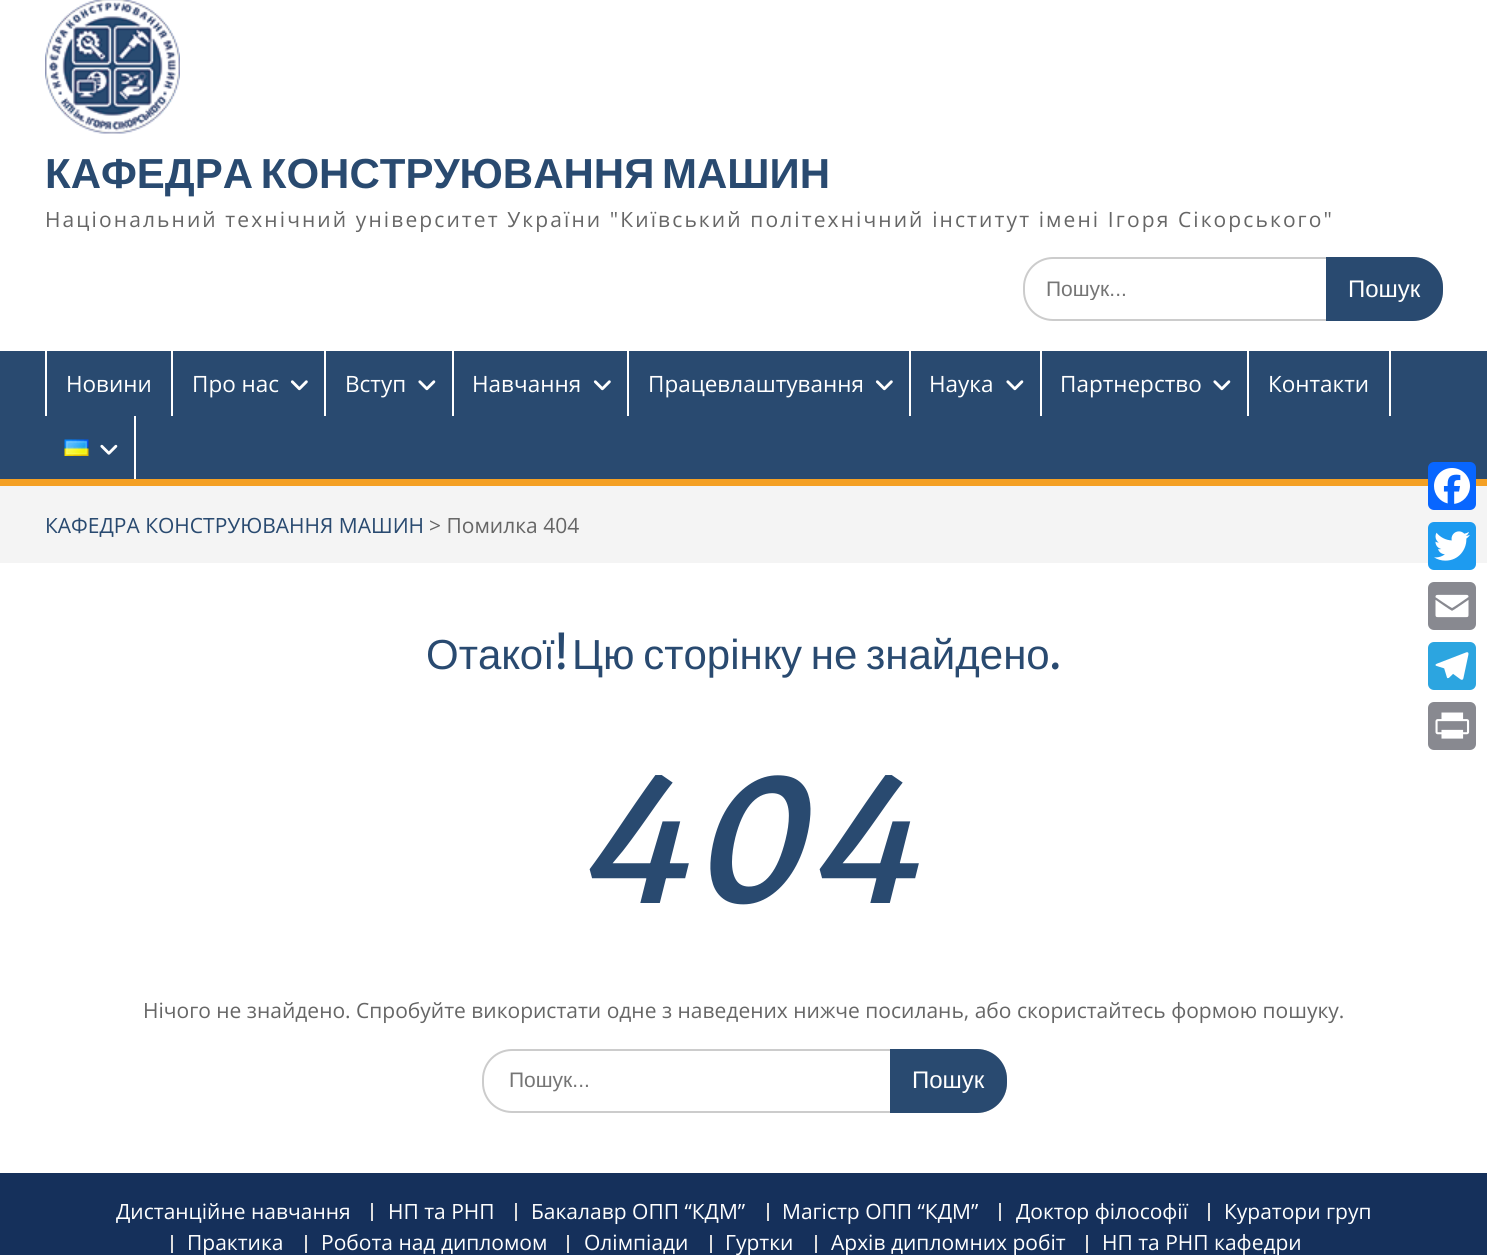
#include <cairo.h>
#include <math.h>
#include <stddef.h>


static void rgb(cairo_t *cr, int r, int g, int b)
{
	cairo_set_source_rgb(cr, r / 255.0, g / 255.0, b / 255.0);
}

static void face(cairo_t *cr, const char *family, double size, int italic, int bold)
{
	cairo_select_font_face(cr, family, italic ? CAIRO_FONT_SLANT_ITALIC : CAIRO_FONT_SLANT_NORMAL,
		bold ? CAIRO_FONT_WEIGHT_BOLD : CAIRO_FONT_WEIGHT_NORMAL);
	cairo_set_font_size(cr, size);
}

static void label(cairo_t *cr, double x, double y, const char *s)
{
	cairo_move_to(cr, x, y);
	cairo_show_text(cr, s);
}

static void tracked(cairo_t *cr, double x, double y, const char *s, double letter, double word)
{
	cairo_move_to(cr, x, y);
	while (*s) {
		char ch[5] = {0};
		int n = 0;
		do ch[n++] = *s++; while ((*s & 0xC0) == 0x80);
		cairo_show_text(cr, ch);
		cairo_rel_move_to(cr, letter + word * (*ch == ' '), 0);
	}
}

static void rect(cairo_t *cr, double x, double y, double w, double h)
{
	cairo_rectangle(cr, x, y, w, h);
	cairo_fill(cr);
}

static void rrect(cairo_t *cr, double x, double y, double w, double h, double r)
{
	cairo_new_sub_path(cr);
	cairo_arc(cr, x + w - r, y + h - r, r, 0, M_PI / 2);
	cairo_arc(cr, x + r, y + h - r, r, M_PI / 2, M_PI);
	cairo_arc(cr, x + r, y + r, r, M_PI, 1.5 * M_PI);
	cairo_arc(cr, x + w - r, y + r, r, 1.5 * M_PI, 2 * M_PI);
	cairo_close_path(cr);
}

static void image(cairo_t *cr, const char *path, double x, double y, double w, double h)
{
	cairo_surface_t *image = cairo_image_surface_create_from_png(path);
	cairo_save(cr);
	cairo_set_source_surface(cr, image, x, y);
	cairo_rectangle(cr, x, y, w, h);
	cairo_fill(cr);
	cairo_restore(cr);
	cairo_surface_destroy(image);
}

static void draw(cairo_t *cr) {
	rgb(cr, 255, 255, 255);
	cairo_paint(cr);
	image(cr, "image0.png", 45, 0, 135, 134);
	face(cr, "Liberation Sans", 42, 0, 1);
	rgb(cr, 41, 74, 112);
	tracked(cr, 45, 188, "КАФЕДРА КОНСТРУЮВАННЯ МАШИН", 0, -4);
	face(cr, "Open Sans", 21, 0, 0);
	rgb(cr, 102, 102, 102);
	tracked(cr, 45, 227, "Національний технічний університет України \"Київський політехнічний інститут імені Ігоря Сікорського\"", 2.1, 0);
	rrect(cr, 1024, 258, 418, 62, 29);
	rgb(cr, 204, 204, 204);
	cairo_stroke(cr);
	cairo_save(cr);
	cairo_rectangle(cr, 1046, 276, 285, 24);
	cairo_clip(cr);
	face(cr, "Liberation Sans", 21, 0, 0);
	rgb(cr, 117, 117, 117);
	label(cr, 1046, 296, "Пошук...");
	cairo_restore(cr);
	rgb(cr, 41, 74, 112);
	cairo_new_path(cr);
	cairo_move_to(cr, 1326, 257);
	cairo_line_to(cr, 1413, 257);
	cairo_curve_to(cr, 1429.5, 257, 1443, 270.5, 1443, 287);
	cairo_line_to(cr, 1443, 291);
	cairo_curve_to(cr, 1443, 307.5, 1429.5, 321, 1413, 321);
	cairo_line_to(cr, 1326, 321);
	cairo_close_path(cr);
	cairo_fill(cr);
	face(cr, "Liberation Sans", 24, 0, 0);
	rgb(cr, 255, 255, 255);
	label(cr, 1348, 297, "Пошук");
	rgb(cr, 41, 74, 112);
	rect(cr, 0, 351, 1487, 128);
	rgb(cr, 244, 160, 36);
	rect(cr, 0, 479, 1487, 7);
	rgb(cr, 255, 255, 255);
	rect(cr, 171, 351, 2, 65);
	rect(cr, 45, 351, 2, 65);
	face(cr, "Open Sans", 22.5, 0, 0);
	label(cr, 66, 392, "Новини");
	rect(cr, 324, 351, 2, 65);
	label(cr, 192, 392, "Про нас");
	image(cr, "image1.png", 290, 380, 18, 11);
	rect(cr, 452, 351, 2, 65);
	label(cr, 345, 392, "Вступ");
	image(cr, "image2.png", 418, 380, 18, 11);
	rect(cr, 627, 351, 2, 65);
	label(cr, 472, 392, "Навчання");
	image(cr, "image1.png", 593, 380, 18, 11);
	rect(cr, 909, 351, 2, 65);
	label(cr, 648, 392, "Працевлаштування");
	image(cr, "image1.png", 875, 380, 18, 11);
	rect(cr, 1040, 351, 2, 65);
	label(cr, 929, 392, "Наука");
	image(cr, "image2.png", 1006, 380, 18, 11);
	rect(cr, 1247, 351, 2, 65);
	label(cr, 1060, 392, "Партнерство");
	image(cr, "image2.png", 1213, 380, 18, 11);
	rect(cr, 1389, 351, 2, 65);
	label(cr, 1268, 392, "Контакти");
	rect(cr, 134, 416, 2, 63);
	image(cr, "image3.png", 64, 439, 25, 17);
	image(cr, "image4.png", 100, 444, 18, 11);
	rgb(cr, 244, 244, 244);
	rect(cr, 0, 486, 1487, 77);
	face(cr, "Open Sans", 21, 0, 0);
	rgb(cr, 41, 74, 112);
	label(cr, 45, 533, "КАФЕДРА КОНСТРУЮВАННЯ МАШИН");
	rgb(cr, 102, 102, 102);
	label(cr, 429, 533, "> Помилка 404");
	face(cr, "Liberation Sans", 42, 0, 0);
	rgb(cr, 41, 74, 112);
	label(cr, 426, 669, "Отакої");
	face(cr, "Merriweather Sans", 42, 0, 0);
	label(cr, 555, 669, "!");
	face(cr, "Liberation Sans", 42, 0, 0);
	tracked(cr, 572, 669, "Цю сторінку не знайдено", 0, -3);
	face(cr, "Merriweather Sans", 42, 0, 0);
	label(cr, 1049, 669, ".");
	face(cr, "Merriweather Sans", 169.5, 1, 0);
	label(cr, 572, 903, "404");
	face(cr, "Open Sans", 21, 0, 0);
	rgb(cr, 102, 102, 102);
	label(cr, 143, 1018, "Нічого не знайдено. Спробуйте використати одне з наведених нижче посилань, або скористайтесь формою пошуку.");
	rrect(cr, 483, 1050, 523, 62, 29);
	rgb(cr, 204, 204, 204);
	cairo_stroke(cr);
	face(cr, "Liberation Sans", 21, 0, 0);
	rgb(cr, 117, 117, 117);
	label(cr, 509, 1087, "Пошук...");
	rgb(cr, 41, 74, 112);
	cairo_new_path(cr);
	cairo_move_to(cr, 890, 1049);
	cairo_line_to(cr, 977, 1049);
	cairo_curve_to(cr, 993.5, 1049, 1007, 1062.5, 1007, 1079);
	cairo_line_to(cr, 1007, 1083);
	cairo_curve_to(cr, 1007, 1099.5, 993.5, 1113, 977, 1113);
	cairo_line_to(cr, 890, 1113);
	cairo_close_path(cr);
	cairo_fill(cr);
	face(cr, "Liberation Sans", 24, 0, 0);
	rgb(cr, 255, 255, 255);
	label(cr, 912, 1088, "Пошук");
	rgb(cr, 21, 48, 91);
	rect(cr, 0, 1173, 1487, 82);
	face(cr, "Open Sans", 21, 0, 0);
	rgb(cr, 255, 255, 255);
	label(cr, 116, 1219, "Дистанційне навчання");
	rgb(cr, 221, 221, 221);
	rect(cr, 371, 1203, 2, 18);
	rgb(cr, 255, 255, 255);
	label(cr, 388, 1219, "НП та РНП");
	rgb(cr, 221, 221, 221);
	rect(cr, 515, 1203, 2, 18);
	rgb(cr, 255, 255, 255);
	label(cr, 531, 1219, "Бакалавр ОПП “КДМ”");
	rgb(cr, 221, 221, 221);
	rect(cr, 767, 1203, 2, 18);
	rgb(cr, 255, 255, 255);
	label(cr, 782, 1219, "Магістр ОПП “КДМ”");
	rgb(cr, 221, 221, 221);
	rect(cr, 999, 1203, 2, 18);
	rgb(cr, 255, 255, 255);
	label(cr, 1016, 1219, "Доктор філософії");
	rgb(cr, 221, 221, 221);
	rect(cr, 1208, 1203, 2, 18);
	rgb(cr, 255, 255, 255);
	label(cr, 1224, 1219, "Куратори груп");
	rgb(cr, 221, 221, 221);
	rect(cr, 171, 1235, 2, 18);
	rgb(cr, 255, 255, 255);
	label(cr, 187, 1250, "Практика");
	rgb(cr, 221, 221, 221);
	rect(cr, 305, 1235, 2, 18);
	rgb(cr, 255, 255, 255);
	label(cr, 321, 1250, "Робота над дипломом");
	rgb(cr, 221, 221, 221);
	rect(cr, 567, 1235, 2, 18);
	rgb(cr, 255, 255, 255);
	label(cr, 584, 1250, "Олімпіади");
	rgb(cr, 221, 221, 221);
	rect(cr, 710, 1235, 2, 18);
	rgb(cr, 255, 255, 255);
	label(cr, 725, 1250, "Гуртки");
	rgb(cr, 221, 221, 221);
	rect(cr, 815, 1235, 2, 18);
	rgb(cr, 255, 255, 255);
	label(cr, 831, 1250, "Архів дипломних робіт");
	rgb(cr, 221, 221, 221);
	rect(cr, 1086, 1235, 2, 18);
	rgb(cr, 255, 255, 255);
	label(cr, 1102, 1250, "НП та РНП кафедри");
	rgb(cr, 8, 102, 255);
	rrect(cr, 1428, 462, 48, 48, 6);
	cairo_fill(cr);
	image(cr, "image5.png", 1434, 468, 36, 36);
	rgb(cr, 29, 155, 240);
	rrect(cr, 1428, 522, 48, 48, 6);
	cairo_fill(cr);
	image(cr, "image6.png", 1434, 531, 36, 30);
	rgb(cr, 136, 137, 144);
	rrect(cr, 1428, 582, 48, 48, 6);
	cairo_fill(cr);
	image(cr, "image7.png", 1435, 594, 34, 24);
	rgb(cr, 44, 165, 224);
	rrect(cr, 1428, 642, 48, 48, 6);
	cairo_fill(cr);
	image(cr, "image8.png", 1435, 652, 34, 28);
	rgb(cr, 136, 137, 144);
	rrect(cr, 1428, 702, 48, 48, 6);
	cairo_fill(cr);
	image(cr, "image9.png", 1435, 712, 35, 27);
}

int main(void) {
	cairo_surface_t *surface = cairo_image_surface_create(CAIRO_FORMAT_RGB24, 1487, 1255);
	cairo_t *cr = cairo_create(surface);
	cairo_font_options_t *options = cairo_font_options_create();
	cairo_font_options_set_hint_metrics(options, CAIRO_HINT_METRICS_OFF);
	cairo_font_options_set_hint_style(options, CAIRO_HINT_STYLE_NONE);
	cairo_set_font_options(cr, options);
	cairo_set_miter_limit(cr, 4);
	draw(cr);
	cairo_surface_write_to_png(surface, "render.png");
	cairo_font_options_destroy(options);
	cairo_destroy(cr);
	cairo_surface_destroy(surface);
	return 0;
}
